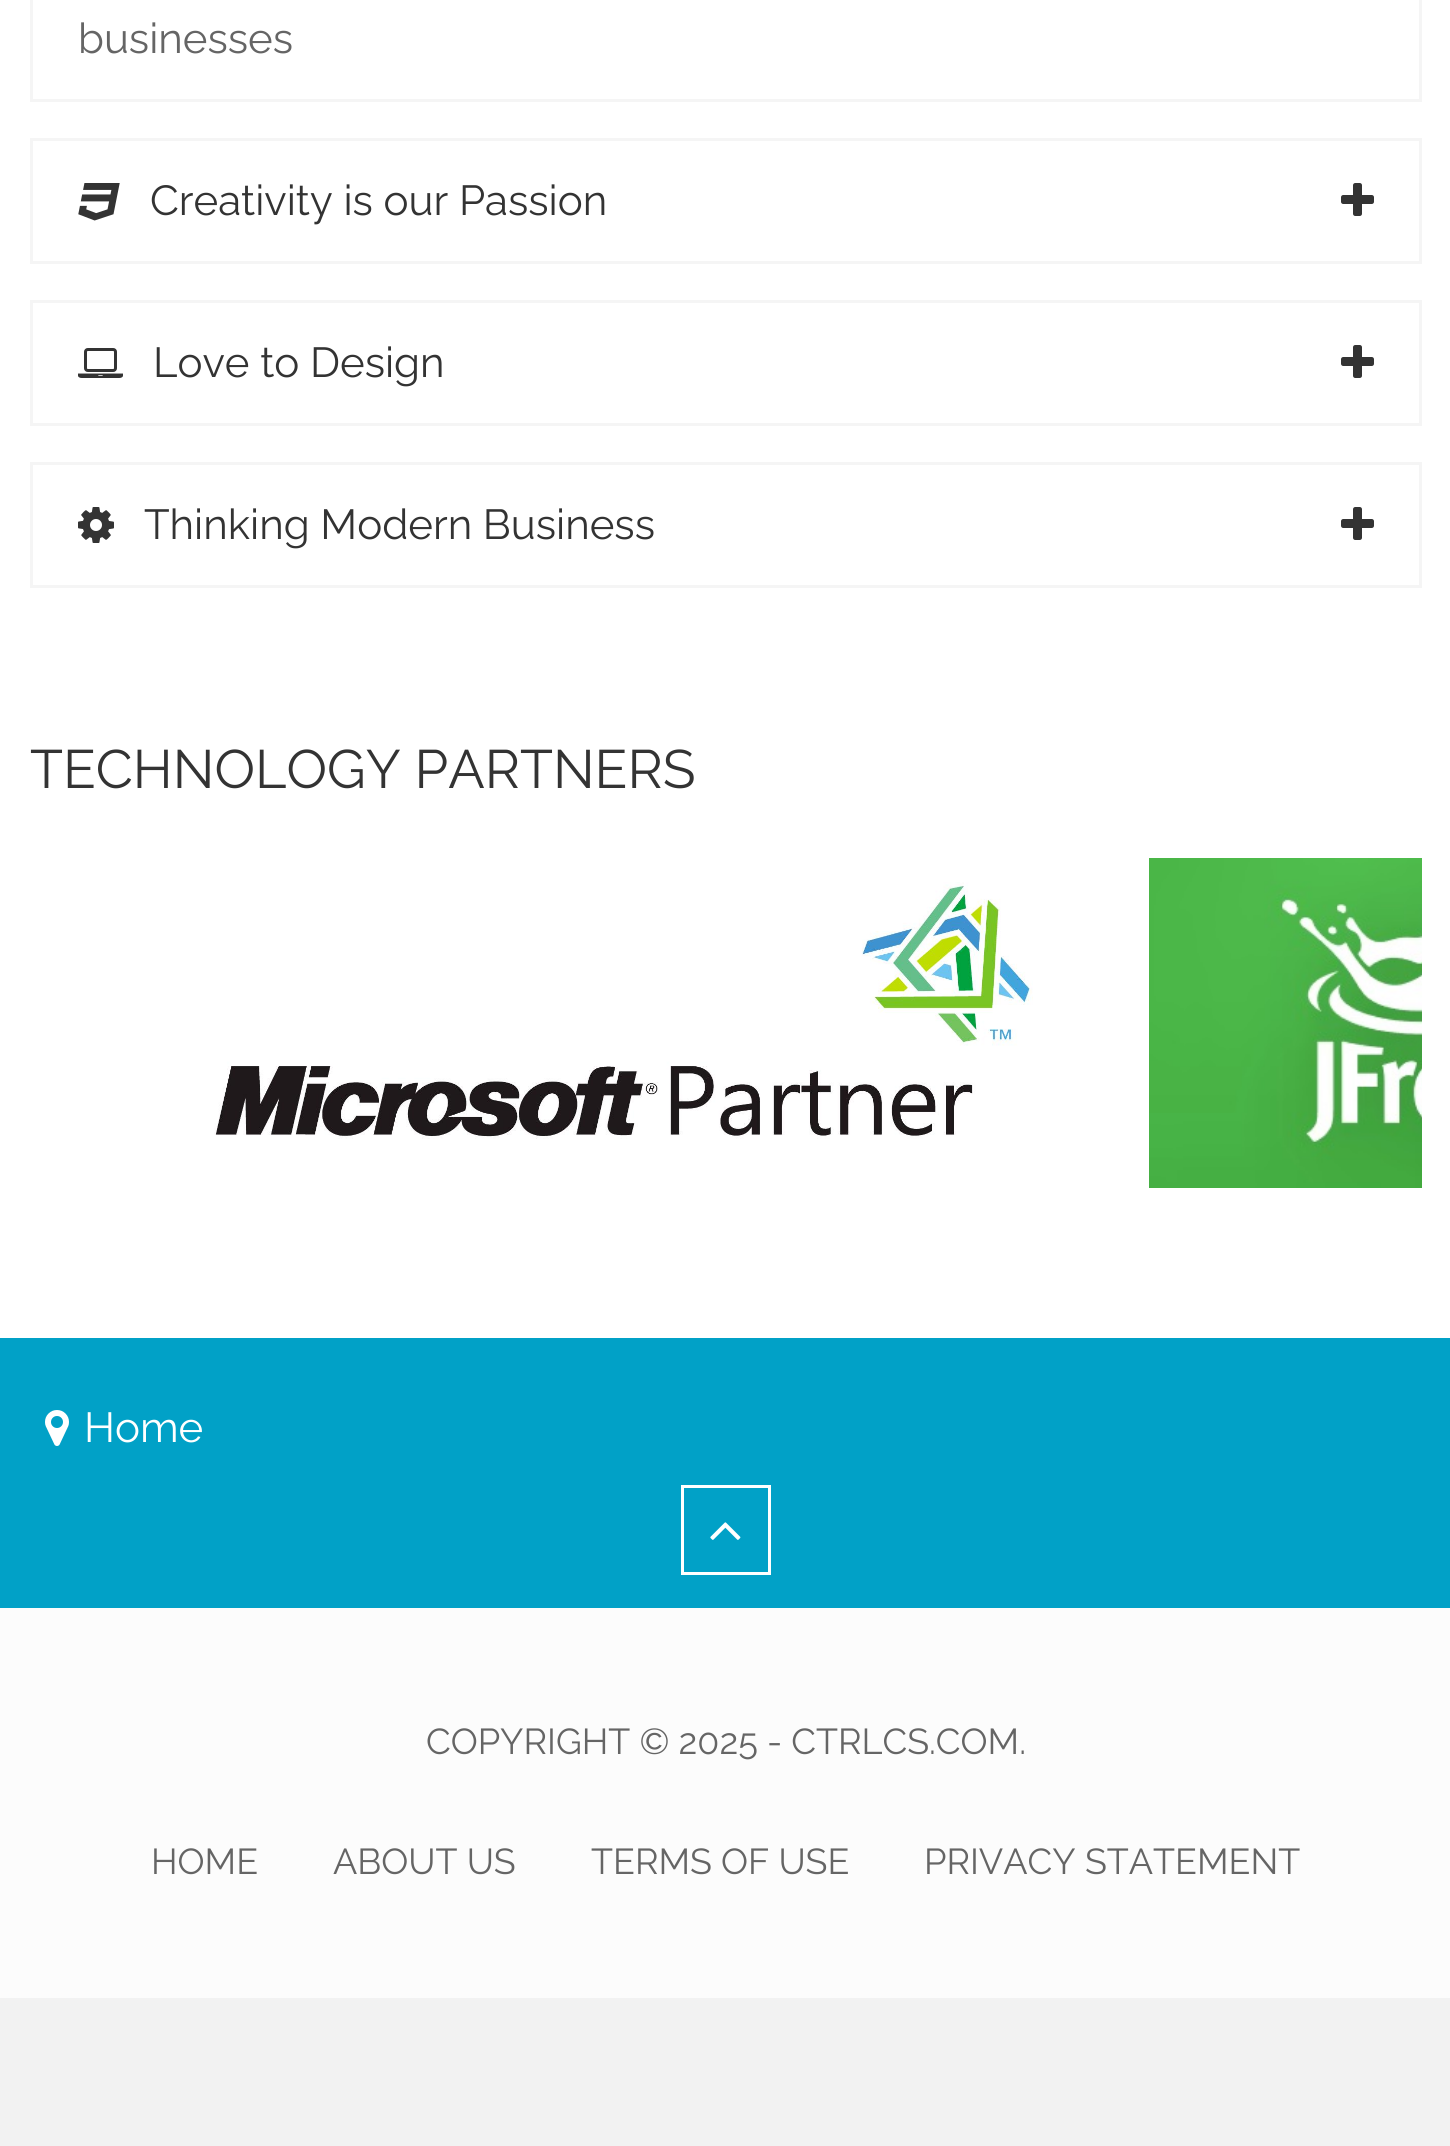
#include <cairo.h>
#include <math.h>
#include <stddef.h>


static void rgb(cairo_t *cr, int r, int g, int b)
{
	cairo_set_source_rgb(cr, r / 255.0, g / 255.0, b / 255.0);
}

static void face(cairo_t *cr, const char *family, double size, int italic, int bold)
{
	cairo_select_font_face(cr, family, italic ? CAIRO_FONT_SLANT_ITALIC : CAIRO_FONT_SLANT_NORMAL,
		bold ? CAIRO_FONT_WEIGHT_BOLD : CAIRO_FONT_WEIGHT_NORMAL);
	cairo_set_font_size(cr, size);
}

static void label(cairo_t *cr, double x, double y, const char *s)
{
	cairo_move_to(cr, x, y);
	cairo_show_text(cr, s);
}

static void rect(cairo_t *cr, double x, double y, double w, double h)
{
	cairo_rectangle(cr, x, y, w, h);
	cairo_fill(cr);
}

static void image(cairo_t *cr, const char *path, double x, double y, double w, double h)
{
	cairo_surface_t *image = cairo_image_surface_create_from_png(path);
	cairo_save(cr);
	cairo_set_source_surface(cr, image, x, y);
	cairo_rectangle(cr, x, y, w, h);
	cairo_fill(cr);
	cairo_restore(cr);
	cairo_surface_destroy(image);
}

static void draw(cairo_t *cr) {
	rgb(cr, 242, 242, 242);
	cairo_paint(cr);
	rgb(cr, 255, 255, 255);
	rect(cr, 0, 0, 1450, 1338);
	cairo_rectangle(cr, 31.5, -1.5, 1389, 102);
	rgb(cr, 245, 245, 245);
	cairo_set_line_width(cr, 3);
	cairo_stroke(cr);
	face(cr, "Raleway", 42, 0, 0);
	rgb(cr, 101, 101, 101);
	label(cr, 78, 53, "businesses");
	cairo_rectangle(cr, 31.5, 139.5, 1389, 123);
	rgb(cr, 245, 245, 245);
	cairo_stroke(cr);
	image(cr, "image0.png", 78, 183, 42, 38);
	rgb(cr, 51, 51, 51);
	label(cr, 150, 215, "Creativity is our Passion");
	image(cr, "image1.png", 1341, 183, 33, 33);
	cairo_rectangle(cr, 31.5, 301.5, 1389, 123);
	rgb(cr, 245, 245, 245);
	cairo_stroke(cr);
	image(cr, "image2.png", 78, 348, 45, 30);
	rgb(cr, 51, 51, 51);
	label(cr, 153, 377, "Love to Design");
	image(cr, "image1.png", 1341, 345, 33, 33);
	cairo_rectangle(cr, 31.5, 463.5, 1389, 123);
	rgb(cr, 245, 245, 245);
	cairo_stroke(cr);
	image(cr, "image3.png", 78, 507, 36, 36);
	rgb(cr, 51, 51, 51);
	label(cr, 144, 539, "Thinking Modern Business");
	image(cr, "image1.png", 1341, 507, 33, 33);
	face(cr, "Raleway", 54, 0, 0);
	label(cr, 30, 788, "TECHNOLOGY PARTNERS");
	image(cr, "image4.png", 214, 882, 819, 257);
	image(cr, "image5.png", 1149, 858, 273, 330);
	rgb(cr, 1, 161, 199);
	rect(cr, 0, 1338, 1450, 270);
	image(cr, "image6.png", 45, 1410, 24, 36);
	face(cr, "Raleway", 42, 0, 0);
	rgb(cr, 255, 255, 255);
	label(cr, 84, 1442, "Home");
	cairo_rectangle(cr, 682.5, 1486.5, 87, 87);
	cairo_stroke(cr);
	image(cr, "image7.png", 710, 1522, 31, 18);
	rgb(cr, 252, 252, 252);
	rect(cr, 0, 1608, 1450, 390);
	face(cr, "Raleway", 36, 0, 0);
	rgb(cr, 101, 101, 101);
	label(cr, 426, 1754, "COPYRIGHT © 2025 - CTRLCS.COM.");
	label(cr, 151, 1874, "HOME");
	label(cr, 333, 1874, "ABOUT US");
	label(cr, 591, 1874, "TERMS OF USE");
	label(cr, 924, 1874, "PRIVACY STATEMENT");
}

int main(void) {
	cairo_surface_t *surface = cairo_image_surface_create(CAIRO_FORMAT_RGB24, 1450, 2146);
	cairo_t *cr = cairo_create(surface);
	cairo_font_options_t *options = cairo_font_options_create();
	cairo_font_options_set_hint_metrics(options, CAIRO_HINT_METRICS_OFF);
	cairo_font_options_set_hint_style(options, CAIRO_HINT_STYLE_NONE);
	cairo_set_font_options(cr, options);
	cairo_set_miter_limit(cr, 4);
	draw(cr);
	cairo_surface_write_to_png(surface, "render.png");
	cairo_font_options_destroy(options);
	cairo_destroy(cr);
	cairo_surface_destroy(surface);
	return 0;
}
